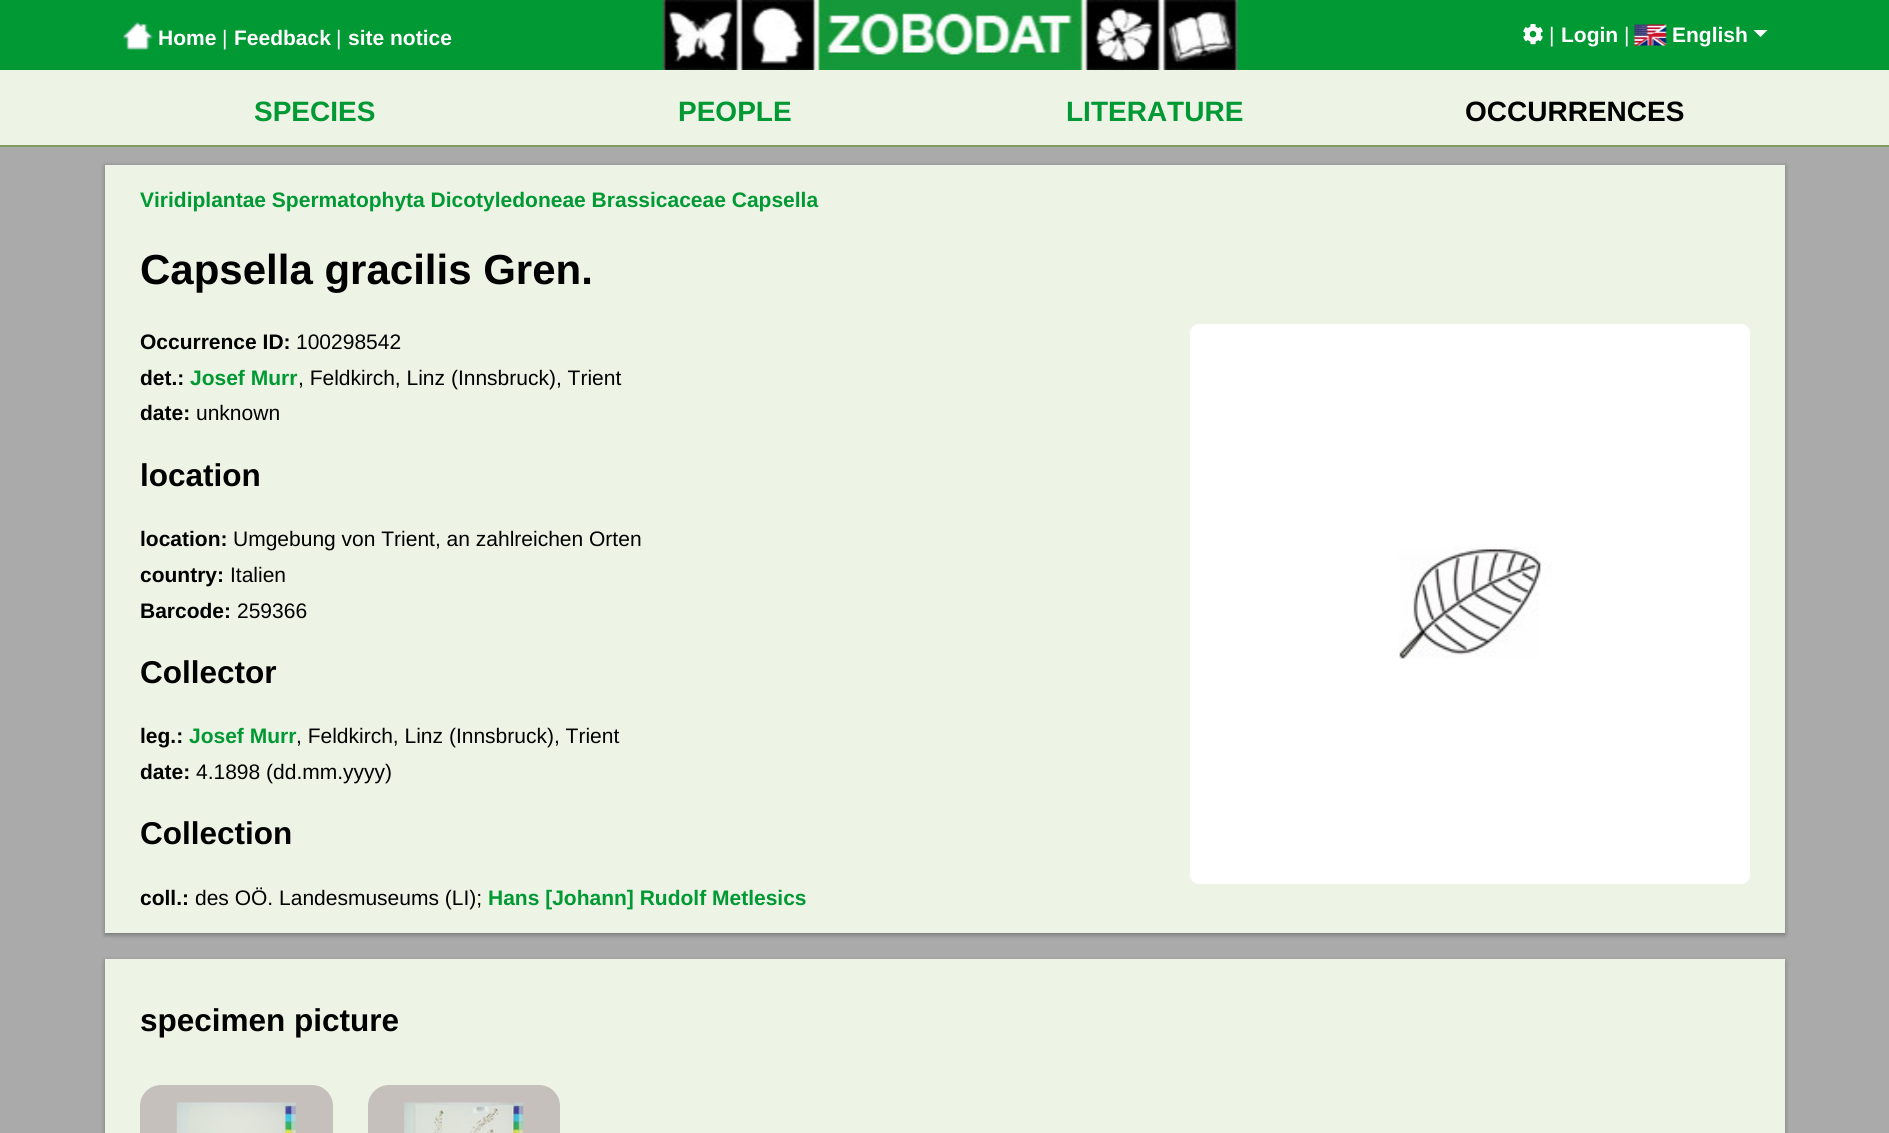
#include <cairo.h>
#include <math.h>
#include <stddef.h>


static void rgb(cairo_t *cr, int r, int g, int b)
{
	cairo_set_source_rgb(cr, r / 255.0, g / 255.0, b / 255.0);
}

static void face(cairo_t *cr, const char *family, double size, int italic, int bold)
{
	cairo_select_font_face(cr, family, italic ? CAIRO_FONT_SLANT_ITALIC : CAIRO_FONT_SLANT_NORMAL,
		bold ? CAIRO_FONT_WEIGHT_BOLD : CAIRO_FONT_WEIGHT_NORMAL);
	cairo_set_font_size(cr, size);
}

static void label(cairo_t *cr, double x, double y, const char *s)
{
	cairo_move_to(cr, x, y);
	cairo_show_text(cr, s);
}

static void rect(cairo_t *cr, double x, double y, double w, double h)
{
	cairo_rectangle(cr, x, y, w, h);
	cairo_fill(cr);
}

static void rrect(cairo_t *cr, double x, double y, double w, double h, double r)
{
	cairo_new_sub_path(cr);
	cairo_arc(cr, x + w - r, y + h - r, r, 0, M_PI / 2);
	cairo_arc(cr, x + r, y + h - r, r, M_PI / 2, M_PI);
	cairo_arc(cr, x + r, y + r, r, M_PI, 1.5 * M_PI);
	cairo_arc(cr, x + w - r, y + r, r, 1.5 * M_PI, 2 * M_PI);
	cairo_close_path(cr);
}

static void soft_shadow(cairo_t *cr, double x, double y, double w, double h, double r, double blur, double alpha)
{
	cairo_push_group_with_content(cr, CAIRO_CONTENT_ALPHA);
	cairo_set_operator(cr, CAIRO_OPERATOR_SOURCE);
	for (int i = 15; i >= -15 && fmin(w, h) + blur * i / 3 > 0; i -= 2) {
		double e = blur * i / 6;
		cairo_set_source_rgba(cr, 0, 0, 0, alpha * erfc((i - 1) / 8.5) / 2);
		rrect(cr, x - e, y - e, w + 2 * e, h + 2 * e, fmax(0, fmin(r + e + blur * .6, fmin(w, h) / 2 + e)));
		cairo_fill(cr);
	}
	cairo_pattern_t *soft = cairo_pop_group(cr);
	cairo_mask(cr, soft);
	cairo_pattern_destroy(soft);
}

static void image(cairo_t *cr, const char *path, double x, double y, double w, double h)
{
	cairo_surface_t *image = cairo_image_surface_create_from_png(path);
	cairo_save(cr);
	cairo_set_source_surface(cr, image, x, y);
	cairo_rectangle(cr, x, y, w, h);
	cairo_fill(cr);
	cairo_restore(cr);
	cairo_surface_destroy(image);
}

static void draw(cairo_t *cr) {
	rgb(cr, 170, 170, 170);
	cairo_paint(cr);
	rgb(cr, 0, 153, 51);
	rect(cr, 0, 0, 1889, 70);
	image(cr, "image0.png", 123, 22, 30, 28);
	face(cr, "Liberation Sans", 21, 0, 1);
	rgb(cr, 255, 255, 255);
	label(cr, 158, 45, "Home");
	face(cr, "Liberation Sans", 21, 0, 0);
	label(cr, 222, 45, "|");
	face(cr, "Liberation Sans", 21, 0, 1);
	label(cr, 234, 45, "Feedback");
	face(cr, "Liberation Sans", 21, 0, 0);
	label(cr, 336, 45, "|");
	face(cr, "Liberation Sans", 21, 0, 1);
	label(cr, 348, 45, "site notice");
	image(cr, "image1.png", 662, 0, 576, 70);
	image(cr, "image2.png", 1523, 24, 20, 21);
	face(cr, "Liberation Sans", 21, 0, 0);
	label(cr, 1549, 42, "|");
	face(cr, "Liberation Sans", 21, 0, 1);
	label(cr, 1561, 42, "Login");
	face(cr, "Liberation Sans", 21, 0, 0);
	label(cr, 1624, 42, "|");
	image(cr, "image3.png", 1634, 24, 33, 22);
	face(cr, "Liberation Sans", 21, 0, 1);
	label(cr, 1672, 42, "English");
	cairo_new_path(cr);
	cairo_move_to(cr, 1753.5, 30);
	cairo_line_to(cr, 1767.5, 30);
	cairo_line_to(cr, 1760.5, 37);
	cairo_close_path(cr);
	cairo_fill(cr);
	rgb(cr, 237, 243, 229);
	rect(cr, 0, 70, 1889, 75);
	rgb(cr, 128, 154, 99);
	rect(cr, 0, 145, 1889, 2);
	face(cr, "Liberation Sans", 28, 0, 1);
	rgb(cr, 0, 153, 51);
	label(cr, 254, 121, "SPECIES");
	label(cr, 678, 121, "PEOPLE");
	label(cr, 1066, 121, "LITERATURE");
	rgb(cr, 0, 0, 0);
	label(cr, 1465, 121, "OCCURRENCES");
	rgb(cr, 0, 0, 0);
	soft_shadow(cr, 105, 166, 1680, 769, 0, 2.5, 0.3);
	rgb(cr, 237, 243, 229);
	rect(cr, 105, 165, 1680, 768);
	face(cr, "Liberation Sans", 21, 0, 1);
	rgb(cr, 0, 153, 51);
	label(cr, 140, 207, "Viridiplantae Spermatophyta Dicotyledoneae Brassicaceae Capsella");
	face(cr, "Liberation Sans", 42, 0, 1);
	rgb(cr, 0, 0, 0);
	label(cr, 140, 284, "Capsella gracilis Gren.");
	face(cr, "Liberation Sans", 21, 0, 1);
	label(cr, 140, 349, "Occurrence ID:");
	face(cr, "Liberation Sans", 21, 0, 0);
	label(cr, 296, 349, "100298542");
	face(cr, "Liberation Sans", 21, 0, 1);
	label(cr, 140, 385, "det.:");
	rgb(cr, 0, 153, 51);
	label(cr, 190, 385, "Josef Murr");
	face(cr, "Liberation Sans", 21, 0, 0);
	rgb(cr, 0, 0, 0);
	label(cr, 298, 385, ", Feldkirch, Linz (Innsbruck), Trient");
	face(cr, "Liberation Sans", 21, 0, 1);
	label(cr, 140, 420, "date:");
	face(cr, "Liberation Sans", 21, 0, 0);
	label(cr, 196, 420, "unknown");
	face(cr, "Liberation Sans", 31.5, 0, 1);
	label(cr, 140, 486, "location");
	face(cr, "Liberation Sans", 21, 0, 1);
	label(cr, 140, 546, "location:");
	face(cr, "Liberation Sans", 21, 0, 0);
	label(cr, 233, 546, "Umgebung von Trient, an zahlreichen Orten");
	face(cr, "Liberation Sans", 21, 0, 1);
	label(cr, 140, 582, "country:");
	face(cr, "Liberation Sans", 21, 0, 0);
	label(cr, 230, 582, "Italien");
	face(cr, "Liberation Sans", 21, 0, 1);
	label(cr, 140, 618, "Barcode:");
	face(cr, "Liberation Sans", 21, 0, 0);
	label(cr, 237, 618, "259366");
	face(cr, "Liberation Sans", 31.5, 0, 1);
	label(cr, 140, 683, "Collector");
	face(cr, "Liberation Sans", 21, 0, 1);
	label(cr, 140, 743, "leg.:");
	rgb(cr, 0, 153, 51);
	label(cr, 189, 743, "Josef Murr");
	face(cr, "Liberation Sans", 21, 0, 0);
	rgb(cr, 0, 0, 0);
	label(cr, 296, 743, ", Feldkirch, Linz (Innsbruck), Trient");
	face(cr, "Liberation Sans", 21, 0, 1);
	label(cr, 140, 779, "date:");
	face(cr, "Liberation Sans", 21, 0, 0);
	label(cr, 196, 779, "4.1898 (dd.mm.yyyy)");
	face(cr, "Liberation Sans", 31.5, 0, 1);
	label(cr, 140, 844, "Collection");
	face(cr, "Liberation Sans", 21, 0, 1);
	label(cr, 140, 905, "coll.:");
	face(cr, "Liberation Sans", 21, 0, 0);
	label(cr, 195, 905, "des OÖ. Landesmuseums (LI);");
	face(cr, "Liberation Sans", 21, 0, 1);
	rgb(cr, 0, 153, 51);
	label(cr, 488, 905, "Hans [Johann] Rudolf Metlesics");
	rgb(cr, 255, 255, 255);
	rrect(cr, 1190, 324, 560, 560, 9);
	cairo_fill(cr);
	image(cr, "image4.png", 1399, 546, 153, 113);
	rgb(cr, 0, 0, 0);
	soft_shadow(cr, 105, 961, 1680, 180, 0, 2.5, 0.3);
	rgb(cr, 237, 243, 229);
	rect(cr, 105, 959, 1680, 174);
	face(cr, "Liberation Sans", 31.5, 0, 1);
	rgb(cr, 0, 0, 0);
	label(cr, 140, 1031, "specimen picture");
	rgb(cr, 198, 192, 188);
	rrect(cr, 140, 1085, 193, 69, 21);
	cairo_fill(cr);
	image(cr, "image5.png", 176, 1102, 120, 31);
	rrect(cr, 368, 1085, 192, 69, 21);
	cairo_fill(cr);
	image(cr, "image6.png", 404, 1102, 120, 31);
}

int main(void) {
	cairo_surface_t *surface = cairo_image_surface_create(CAIRO_FORMAT_RGB24, 1889, 1133);
	cairo_t *cr = cairo_create(surface);
	cairo_font_options_t *options = cairo_font_options_create();
	cairo_font_options_set_hint_metrics(options, CAIRO_HINT_METRICS_OFF);
	cairo_font_options_set_hint_style(options, CAIRO_HINT_STYLE_NONE);
	cairo_set_font_options(cr, options);
	cairo_set_miter_limit(cr, 4);
	draw(cr);
	cairo_surface_write_to_png(surface, "render.png");
	cairo_font_options_destroy(options);
	cairo_destroy(cr);
	cairo_surface_destroy(surface);
	return 0;
}
